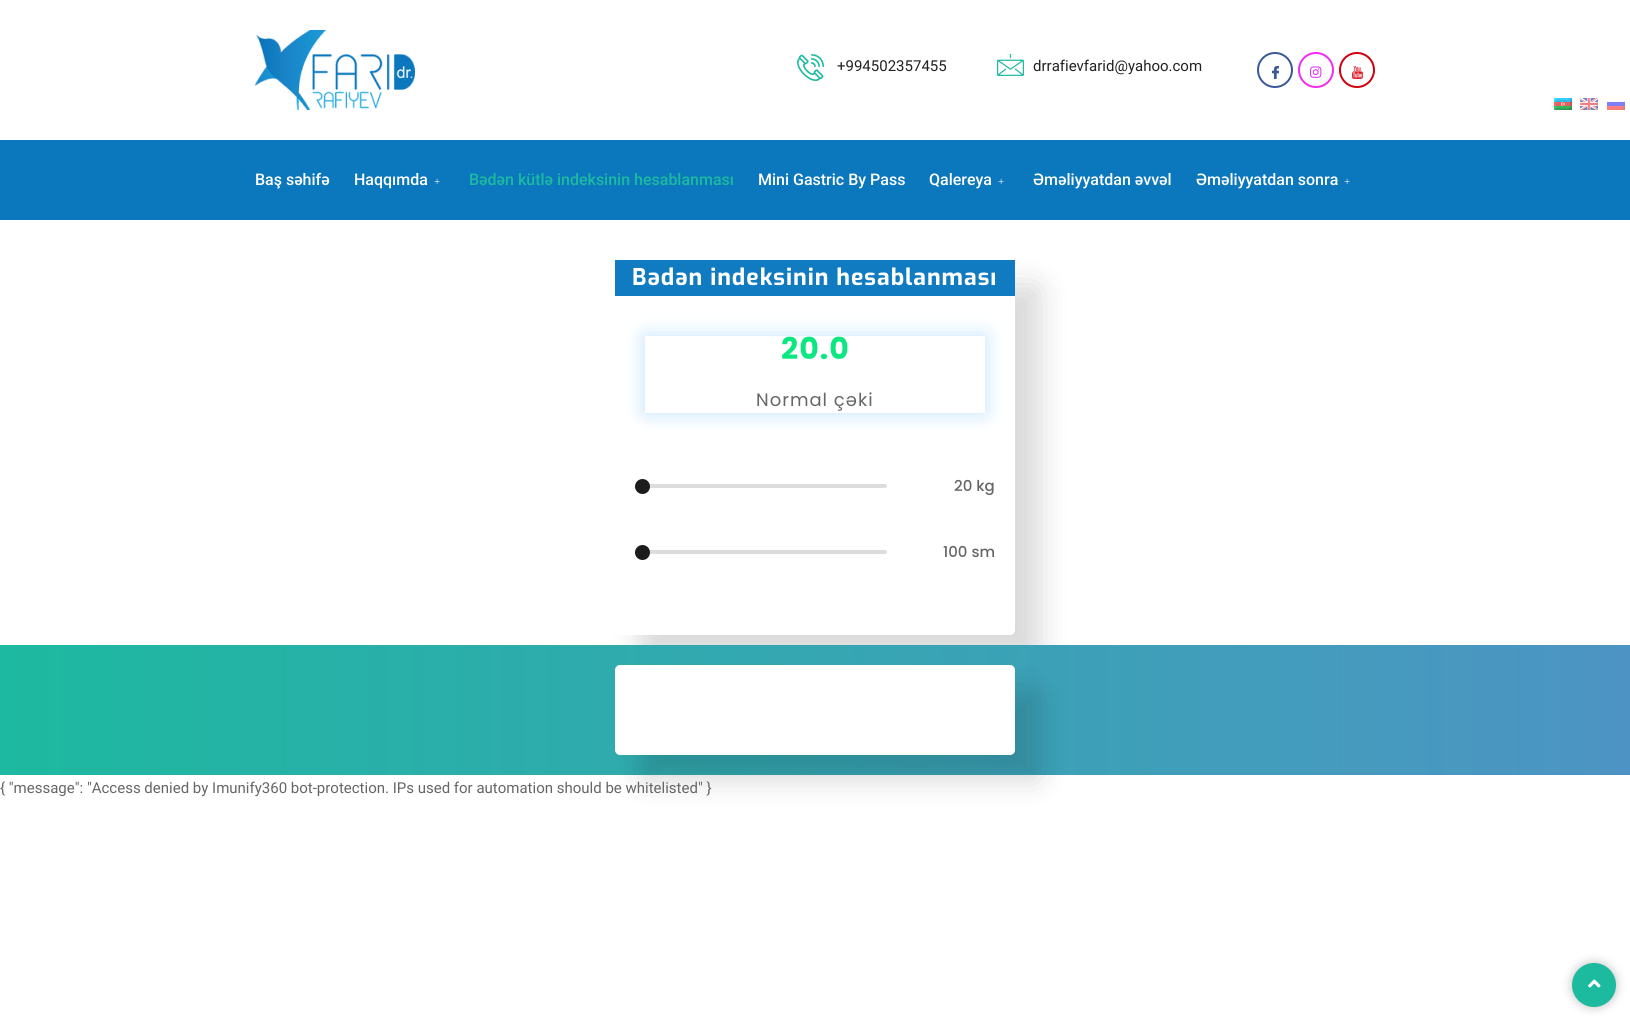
#include <cairo.h>
#include <math.h>
#include <stddef.h>


static void rgb(cairo_t *cr, int r, int g, int b)
{
	cairo_set_source_rgb(cr, r / 255.0, g / 255.0, b / 255.0);
}

static void face(cairo_t *cr, const char *family, double size, int italic, int bold)
{
	cairo_select_font_face(cr, family, italic ? CAIRO_FONT_SLANT_ITALIC : CAIRO_FONT_SLANT_NORMAL,
		bold ? CAIRO_FONT_WEIGHT_BOLD : CAIRO_FONT_WEIGHT_NORMAL);
	cairo_set_font_size(cr, size);
}

static void label(cairo_t *cr, double x, double y, const char *s)
{
	cairo_move_to(cr, x, y);
	cairo_show_text(cr, s);
}

static void tracked(cairo_t *cr, double x, double y, const char *s, double letter, double word)
{
	cairo_move_to(cr, x, y);
	while (*s) {
		char ch[5] = {0};
		int n = 0;
		do ch[n++] = *s++; while ((*s & 0xC0) == 0x80);
		cairo_show_text(cr, ch);
		cairo_rel_move_to(cr, letter + word * (*ch == ' '), 0);
	}
}

static void rect(cairo_t *cr, double x, double y, double w, double h)
{
	cairo_rectangle(cr, x, y, w, h);
	cairo_fill(cr);
}

static void rrect(cairo_t *cr, double x, double y, double w, double h, double r)
{
	cairo_new_sub_path(cr);
	cairo_arc(cr, x + w - r, y + h - r, r, 0, M_PI / 2);
	cairo_arc(cr, x + r, y + h - r, r, M_PI / 2, M_PI);
	cairo_arc(cr, x + r, y + r, r, M_PI, 1.5 * M_PI);
	cairo_arc(cr, x + w - r, y + r, r, 1.5 * M_PI, 2 * M_PI);
	cairo_close_path(cr);
}

static void soft_shadow(cairo_t *cr, double x, double y, double w, double h, double r, double blur, double alpha)
{
	cairo_push_group_with_content(cr, CAIRO_CONTENT_ALPHA);
	cairo_set_operator(cr, CAIRO_OPERATOR_SOURCE);
	for (int i = 15; i >= -15 && fmin(w, h) + blur * i / 3 > 0; i -= 2) {
		double e = blur * i / 6;
		cairo_set_source_rgba(cr, 0, 0, 0, alpha * erfc((i - 1) / 8.5) / 2);
		rrect(cr, x - e, y - e, w + 2 * e, h + 2 * e, fmax(0, fmin(r + e + blur * .6, fmin(w, h) / 2 + e)));
		cairo_fill(cr);
	}
	cairo_pattern_t *soft = cairo_pop_group(cr);
	cairo_mask(cr, soft);
	cairo_pattern_destroy(soft);
}

static void image(cairo_t *cr, const char *path, double x, double y, double w, double h)
{
	cairo_surface_t *image = cairo_image_surface_create_from_png(path);
	cairo_save(cr);
	cairo_set_source_surface(cr, image, x, y);
	cairo_rectangle(cr, x, y, w, h);
	cairo_fill(cr);
	cairo_restore(cr);
	cairo_surface_destroy(image);
}

static void draw(cairo_t *cr) {
	cairo_pattern_t *gradient;
	rgb(cr, 255, 255, 255);
	cairo_paint(cr);
	image(cr, "image0.png", 255, 30, 160, 80);
	image(cr, "image1.png", 797, 54, 27, 27);
	face(cr, "Roboto", 15, 0, 0);
	rgb(cr, 34, 34, 34);
	label(cr, 837, 71, "+994502357455");
	image(cr, "image2.png", 997, 54, 27, 22);
	label(cr, 1033, 71, "drrafievfarid@yahoo.com");
	cairo_new_path(cr);
	cairo_arc(cr, 1275, 70, 17, 0, 2 * M_PI);
	rgb(cr, 59, 89, 152);
	cairo_stroke(cr);
	image(cr, "image3.png", 1272, 66, 7, 13);
	cairo_arc(cr, 1316, 70, 17, 0, 2 * M_PI);
	rgb(cr, 241, 44, 243);
	cairo_stroke(cr);
	image(cr, "image4.png", 1310, 66, 12, 12);
	cairo_arc(cr, 1357, 70, 17, 0, 2 * M_PI);
	rgb(cr, 208, 0, 15);
	cairo_stroke(cr);
	image(cr, "image5.png", 1352, 66, 11, 13);
	rgb(cr, 11, 119, 189);
	rect(cr, 0, 140, 1630, 80);
	face(cr, "Roboto Medium", 16, 0, 0);
	rgb(cr, 255, 255, 255);
	label(cr, 255, 185, "Baş səhifə");
	label(cr, 354, 185, "Haqqımda");
	face(cr, "Liberation Serif", 11, 0, 0);
	label(cr, 434, 185, "+");
	face(cr, "Roboto Medium", 16, 0, 0);
	rgb(cr, 28, 186, 159);
	label(cr, 469, 185, "Bədən kütlə indeksinin hesablanması");
	rgb(cr, 255, 255, 255);
	label(cr, 758, 185, "Mini Gastric By Pass");
	label(cr, 929, 185, "Qalereya");
	face(cr, "Liberation Serif", 11, 0, 0);
	label(cr, 998, 185, "+");
	face(cr, "Roboto Medium", 16, 0, 0);
	label(cr, 1033, 185, "Əməliyyatdan əvvəl");
	label(cr, 1196, 185, "Əməliyyatdan sonra");
	face(cr, "Liberation Serif", 11, 0, 0);
	label(cr, 1344, 185, "+");
	image(cr, "image6.png", 1554, 98, 18, 12);
	image(cr, "image7.png", 1580, 98, 18, 12);
	image(cr, "image8.png", 1607, 100, 18, 10);
	rgb(cr, 0, 0, 0);
	soft_shadow(cr, 640, 285, 400, 375, 5, 15, 0.15);
	rgb(cr, 255, 255, 255);
	rrect(cr, 615, 260, 400, 375, 5);
	cairo_fill(cr);
	rgb(cr, 17, 123, 193);
	rect(cr, 615, 260, 400, 36);
	face(cr, "Exo", 23, 0, 1);
	rgb(cr, 255, 255, 255);
	tracked(cr, 632, 285, "Bədən indeksinin hesablanması", 1, 0);
	cairo_save(cr);
	cairo_set_fill_rule(cr, CAIRO_FILL_RULE_EVEN_ODD);
	cairo_new_path(cr);
	cairo_move_to(cr, 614, 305);
	cairo_line_to(cr, 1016, 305);
	cairo_line_to(cr, 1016, 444);
	cairo_line_to(cr, 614, 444);
	cairo_close_path(cr);
	cairo_move_to(cr, 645, 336);
	cairo_line_to(cr, 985, 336);
	cairo_line_to(cr, 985, 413);
	cairo_line_to(cr, 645, 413);
	cairo_close_path(cr);
	cairo_clip(cr);
	rgb(cr, 0, 139, 253);
	soft_shadow(cr, 645, 336, 340, 77, 0, 10, 0.25);
	cairo_restore(cr);
	face(cr, "Poppins", 30, 0, 1);
	rgb(cr, 11, 232, 129);
	tracked(cr, 781, 359, "20.0", 1, 0);
	face(cr, "Poppins", 18, 0, 0);
	rgb(cr, 102, 102, 102);
	tracked(cr, 756, 406, "Normal çəki", 1, 0);
	rgb(cr, 220, 220, 220);
	rrect(cr, 635, 484, 252, 4, 2);
	cairo_fill(cr);
	rgb(cr, 28, 28, 28);
	cairo_arc(cr, 642.5, 486.5, 7.5, 0, 2 * M_PI);
	cairo_fill(cr);
	face(cr, "Poppins Medium", 15, 0, 0);
	rgb(cr, 102, 102, 102);
	label(cr, 954, 491, "20 kg");
	rgb(cr, 220, 220, 220);
	rrect(cr, 635, 550, 252, 4, 2);
	cairo_fill(cr);
	rgb(cr, 28, 28, 28);
	cairo_arc(cr, 642.5, 552.5, 7.5, 0, 2 * M_PI);
	cairo_fill(cr);
	rgb(cr, 102, 102, 102);
	label(cr, 943, 557, "100 sm");
	gradient = cairo_pattern_create_linear(0, 710, 1630, 710);
	cairo_pattern_add_color_stop_rgba(gradient, 0, 0.114, 0.725, 0.627, 1);
	cairo_pattern_add_color_stop_rgba(gradient, 1, 0.302, 0.58, 0.769, 1);
	cairo_set_source(cr, gradient);
	cairo_pattern_destroy(gradient);
	rect(cr, 0, 645, 1630, 130);
	rgb(cr, 0, 0, 0);
	soft_shadow(cr, 640, 690, 400, 90, 5, 15, 0.15);
	rgb(cr, 255, 255, 255);
	rrect(cr, 615, 665, 400, 90, 5);
	cairo_fill(cr);
	face(cr, "Roboto", 15, 0, 0);
	rgb(cr, 102, 102, 102);
	label(cr, 0, 793, "{ \"message\": \"Access denied by Imunify360 bot-protection. IPs used for automation should be whitelisted\" }");
	rgb(cr, 0, 0, 0);
	soft_shadow(cr, 1572, 963, 44, 44, 22, 5, 0.25);
	rgb(cr, 28, 186, 159);
	cairo_arc(cr, 1594, 985, 22, 0, 2 * M_PI);
	cairo_fill(cr);
	image(cr, "image9.png", 1588, 979, 13, 9);
}

int main(void) {
	cairo_surface_t *surface = cairo_image_surface_create(CAIRO_FORMAT_RGB24, 1630, 1025);
	cairo_t *cr = cairo_create(surface);
	cairo_font_options_t *options = cairo_font_options_create();
	cairo_font_options_set_hint_metrics(options, CAIRO_HINT_METRICS_OFF);
	cairo_font_options_set_hint_style(options, CAIRO_HINT_STYLE_NONE);
	cairo_set_font_options(cr, options);
	cairo_set_miter_limit(cr, 4);
	draw(cr);
	cairo_surface_write_to_png(surface, "render.png");
	cairo_font_options_destroy(options);
	cairo_destroy(cr);
	cairo_surface_destroy(surface);
	return 0;
}
